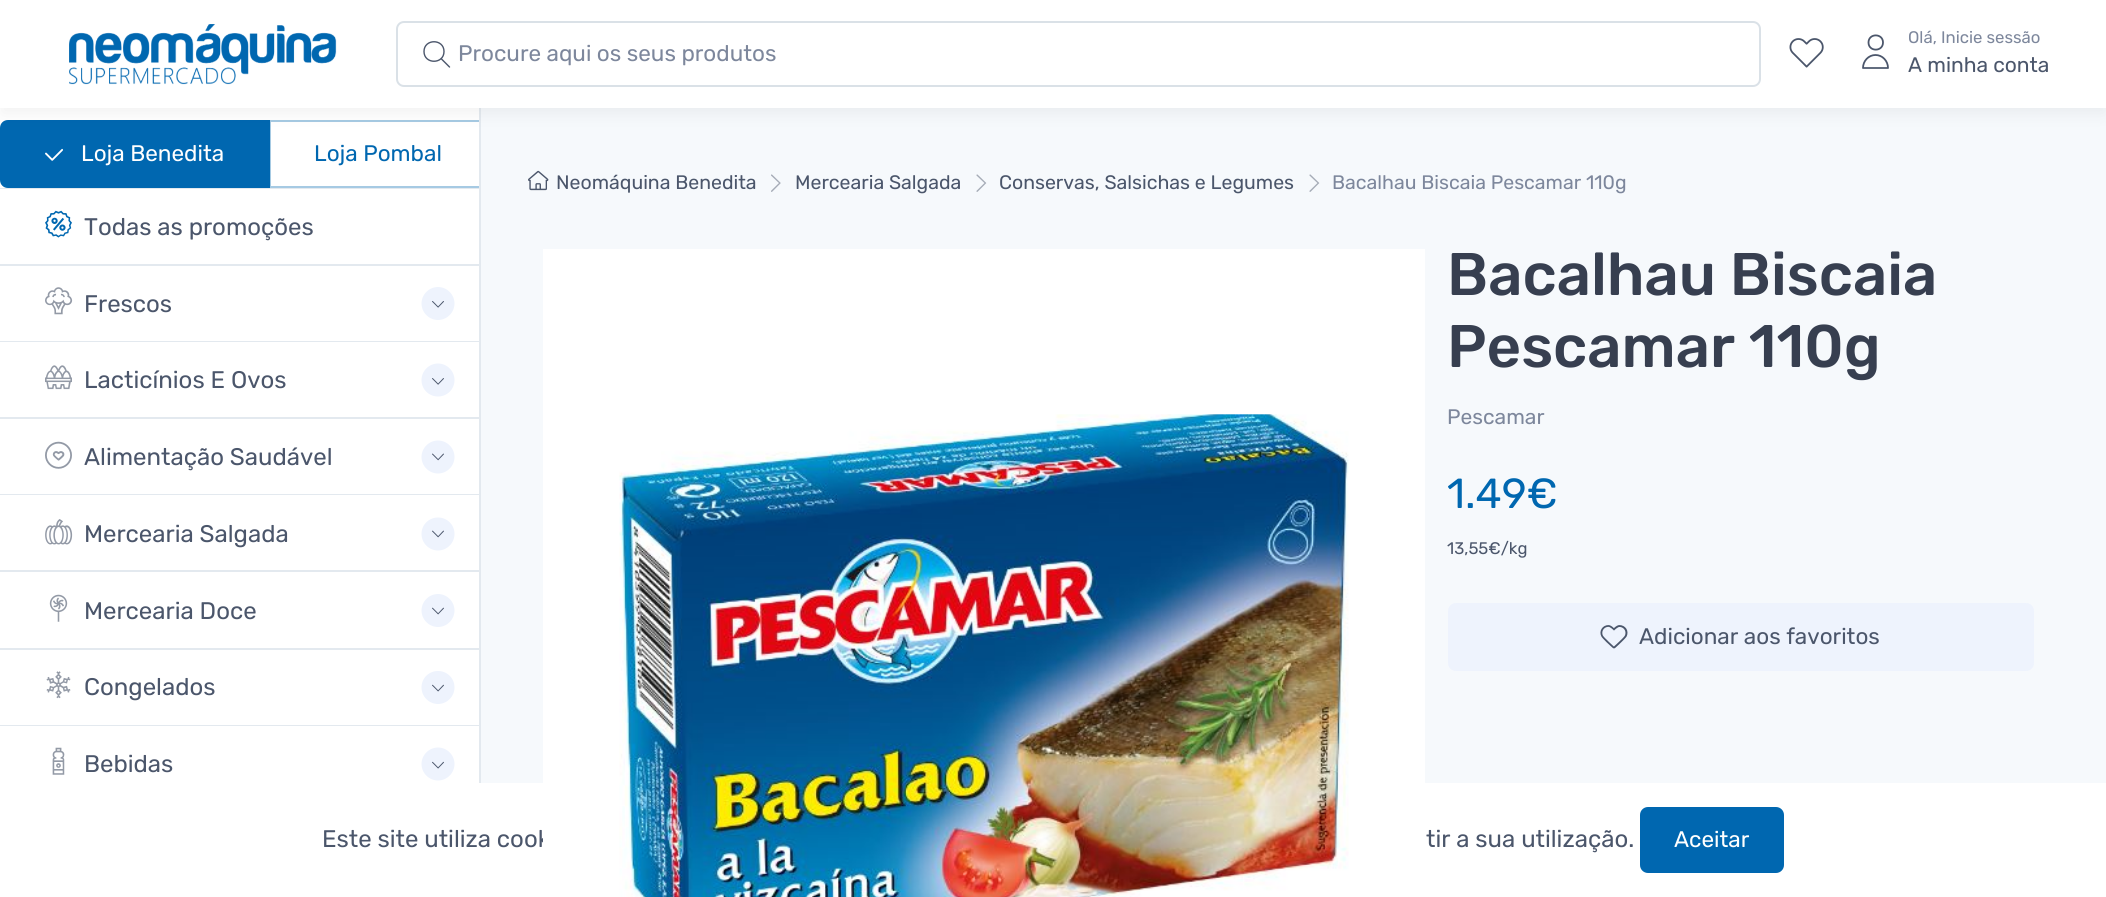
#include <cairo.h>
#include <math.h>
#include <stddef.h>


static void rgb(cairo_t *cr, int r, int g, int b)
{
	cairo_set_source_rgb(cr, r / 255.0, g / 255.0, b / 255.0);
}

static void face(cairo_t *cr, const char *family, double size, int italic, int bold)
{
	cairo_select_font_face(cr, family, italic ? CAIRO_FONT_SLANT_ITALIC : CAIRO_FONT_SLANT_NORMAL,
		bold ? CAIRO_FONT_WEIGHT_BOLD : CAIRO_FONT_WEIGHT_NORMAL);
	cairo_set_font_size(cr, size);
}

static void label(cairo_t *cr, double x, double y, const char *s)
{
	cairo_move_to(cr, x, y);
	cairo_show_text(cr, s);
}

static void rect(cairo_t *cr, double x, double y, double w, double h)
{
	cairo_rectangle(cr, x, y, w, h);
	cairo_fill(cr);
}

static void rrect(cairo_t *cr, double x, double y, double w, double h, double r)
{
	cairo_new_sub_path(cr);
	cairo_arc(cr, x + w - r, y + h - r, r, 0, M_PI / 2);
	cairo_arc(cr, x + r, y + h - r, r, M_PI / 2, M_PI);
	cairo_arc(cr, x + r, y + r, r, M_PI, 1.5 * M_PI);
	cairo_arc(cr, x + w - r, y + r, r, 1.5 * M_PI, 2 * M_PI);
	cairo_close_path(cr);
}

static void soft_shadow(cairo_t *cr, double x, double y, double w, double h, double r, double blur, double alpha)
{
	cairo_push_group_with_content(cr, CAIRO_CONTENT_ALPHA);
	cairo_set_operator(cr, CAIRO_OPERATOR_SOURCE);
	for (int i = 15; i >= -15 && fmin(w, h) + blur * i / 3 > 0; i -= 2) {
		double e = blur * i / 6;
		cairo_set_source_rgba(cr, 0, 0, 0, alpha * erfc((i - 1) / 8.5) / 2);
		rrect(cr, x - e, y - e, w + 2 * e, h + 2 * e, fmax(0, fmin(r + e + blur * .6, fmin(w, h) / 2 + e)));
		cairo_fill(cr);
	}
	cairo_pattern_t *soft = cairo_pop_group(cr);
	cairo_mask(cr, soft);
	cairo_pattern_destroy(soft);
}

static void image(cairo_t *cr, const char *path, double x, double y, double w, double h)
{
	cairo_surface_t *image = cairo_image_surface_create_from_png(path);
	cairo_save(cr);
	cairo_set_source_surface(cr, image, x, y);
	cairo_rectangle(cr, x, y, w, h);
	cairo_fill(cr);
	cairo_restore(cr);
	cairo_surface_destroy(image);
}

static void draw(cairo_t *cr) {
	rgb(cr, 246, 249, 252);
	cairo_paint(cr);
	rgb(cr, 255, 255, 255);
	rect(cr, 0, 108, 479, 617);
	rgb(cr, 227, 233, 239);
	rect(cr, 479, 108, 2, 675);
	rect(cr, 0, 188, 479, 1);
	cairo_save(cr);
	cairo_rectangle(cr, 0, 120, 479, 68);
	cairo_clip(cr);
	cairo_new_path(cr);
	cairo_move_to(cr, 270, 121);
	cairo_line_to(cr, 480, 121);
	cairo_curve_to(cr, 484, 121, 487, 124, 487, 128);
	cairo_line_to(cr, 487, 180);
	cairo_curve_to(cr, 487, 184, 484, 187, 480, 187);
	cairo_line_to(cr, 270, 187);
	cairo_close_path(cr);
	rgb(cr, 166, 202, 227);
	cairo_stroke(cr);
	cairo_restore(cr);
	rgb(cr, 0, 103, 176);
	cairo_new_path(cr);
	cairo_move_to(cr, 8, 121);
	cairo_line_to(cr, 269, 121);
	cairo_line_to(cr, 269, 187);
	cairo_line_to(cr, 8, 187);
	cairo_curve_to(cr, 4, 187, 1, 184, 1, 180);
	cairo_line_to(cr, 1, 128);
	cairo_curve_to(cr, 1, 124, 4, 121, 8, 121);
	cairo_close_path(cr);
	cairo_fill_preserve(cr);
	cairo_stroke(cr);
	image(cr, "image0.png", 45, 148, 18, 13);
	face(cr, "Rubik", 22.5, 0, 0);
	rgb(cr, 255, 255, 255);
	label(cr, 81, 161, "Loja Benedita");
	rgb(cr, 0, 103, 176);
	label(cr, 314, 161, "Loja Pombal");
	rgb(cr, 227, 233, 239);
	rect(cr, 0, 264, 479, 2);
	image(cr, "image1.png", 45, 210, 27, 28);
	face(cr, "Rubik", 24, 0, 0);
	rgb(cr, 75, 86, 107);
	label(cr, 84, 235, "Todas as promoções");
	rgb(cr, 227, 233, 239);
	rect(cr, 0, 341, 479, 1);
	image(cr, "image2.png", 45, 287, 28, 28);
	rgb(cr, 75, 86, 107);
	label(cr, 84, 312, "Frescos");
	rgb(cr, 238, 243, 253);
	cairo_new_path(cr);
	cairo_move_to(cr, 438, 320);
	cairo_curve_to(cr, 429, 320, 421.5, 312.5, 421.5, 303.5);
	cairo_curve_to(cr, 421.5, 294.5, 429, 287, 438, 287);
	cairo_curve_to(cr, 447, 287, 454.5, 294.5, 454.5, 303.5);
	cairo_curve_to(cr, 454.5, 312.5, 447, 320, 438, 320);
	cairo_close_path(cr);
	cairo_fill(cr);
	image(cr, "image3.png", 432, 301, 12, 7);
	rgb(cr, 227, 233, 239);
	rect(cr, 0, 417, 479, 2);
	image(cr, "image4.png", 45, 365, 27, 25);
	rgb(cr, 75, 86, 107);
	label(cr, 84, 388, "Lacticínios E Ovos");
	rgb(cr, 238, 243, 253);
	cairo_new_path(cr);
	cairo_move_to(cr, 438, 396.5);
	cairo_curve_to(cr, 429, 396.5, 421.5, 389.5, 421.5, 380);
	cairo_curve_to(cr, 421.5, 371, 429, 363.5, 438, 363.5);
	cairo_curve_to(cr, 447, 363.5, 454.5, 371, 454.5, 380);
	cairo_curve_to(cr, 454.5, 389.5, 447, 396.5, 438, 396.5);
	cairo_close_path(cr);
	cairo_fill(cr);
	image(cr, "image5.png", 432, 378, 12, 7);
	rgb(cr, 227, 233, 239);
	rect(cr, 0, 494, 479, 1);
	image(cr, "image6.png", 45, 441, 27, 28);
	rgb(cr, 75, 86, 107);
	label(cr, 84, 465, "Alimentação Saudável");
	rgb(cr, 238, 243, 253);
	cairo_new_path(cr);
	cairo_move_to(cr, 438, 473.5);
	cairo_curve_to(cr, 429, 473.5, 421.5, 466, 421.5, 457);
	cairo_curve_to(cr, 421.5, 448, 429, 440.5, 438, 440.5);
	cairo_curve_to(cr, 447, 440.5, 454.5, 448, 454.5, 457);
	cairo_curve_to(cr, 454.5, 466, 447, 473.5, 438, 473.5);
	cairo_close_path(cr);
	cairo_fill(cr);
	image(cr, "image7.png", 432, 453, 12, 8);
	rgb(cr, 227, 233, 239);
	rect(cr, 0, 570, 479, 2);
	image(cr, "image8.png", 45, 519, 28, 26);
	rgb(cr, 75, 86, 107);
	label(cr, 84, 542, "Mercearia Salgada");
	rgb(cr, 238, 243, 253);
	cairo_new_path(cr);
	cairo_move_to(cr, 438, 550.5);
	cairo_curve_to(cr, 429, 550.5, 421.5, 543, 421.5, 534);
	cairo_curve_to(cr, 421.5, 524.5, 429, 517.5, 438, 517.5);
	cairo_curve_to(cr, 447, 517.5, 454.5, 524.5, 454.5, 534);
	cairo_curve_to(cr, 454.5, 543, 447, 550.5, 438, 550.5);
	cairo_close_path(cr);
	cairo_fill(cr);
	image(cr, "image9.png", 432, 530, 12, 8);
	rgb(cr, 227, 233, 239);
	rect(cr, 0, 648, 479, 2);
	image(cr, "image10.png", 49, 594, 19, 28);
	rgb(cr, 75, 86, 107);
	label(cr, 84, 619, "Mercearia Doce");
	rgb(cr, 238, 243, 253);
	cairo_new_path(cr);
	cairo_move_to(cr, 438, 627);
	cairo_curve_to(cr, 429, 627, 421.5, 619.5, 421.5, 610.5);
	cairo_curve_to(cr, 421.5, 601.5, 429, 594, 438, 594);
	cairo_curve_to(cr, 447, 594, 454.5, 601.5, 454.5, 610.5);
	cairo_curve_to(cr, 454.5, 619.5, 447, 627, 438, 627);
	cairo_close_path(cr);
	cairo_fill(cr);
	image(cr, "image11.png", 432, 607, 12, 8);
	rgb(cr, 227, 233, 239);
	rect(cr, 0, 725, 479, 1);
	image(cr, "image12.png", 46, 671, 25, 28);
	rgb(cr, 75, 86, 107);
	label(cr, 84, 695, "Congelados");
	rgb(cr, 238, 243, 253);
	cairo_new_path(cr);
	cairo_move_to(cr, 438, 704);
	cairo_curve_to(cr, 429, 704, 421.5, 696.5, 421.5, 687.5);
	cairo_curve_to(cr, 421.5, 678, 429, 671, 438, 671);
	cairo_curve_to(cr, 447, 671, 454.5, 678, 454.5, 687.5);
	cairo_curve_to(cr, 454.5, 696.5, 447, 704, 438, 704);
	cairo_close_path(cr);
	cairo_fill(cr);
	image(cr, "image13.png", 432, 684, 12, 8);
	rgb(cr, 255, 255, 255);
	rect(cr, 0, 726, 479, 57);
	image(cr, "image14.png", 52, 747, 13, 28);
	rgb(cr, 75, 86, 107);
	label(cr, 84, 772, "Bebidas");
	rgb(cr, 238, 243, 253);
	cairo_new_path(cr);
	cairo_move_to(cr, 438, 780.5);
	cairo_curve_to(cr, 429, 780.5, 421.5, 773, 421.5, 764);
	cairo_curve_to(cr, 421.5, 755, 429, 747.5, 438, 747.5);
	cairo_curve_to(cr, 447, 747.5, 454.5, 755, 454.5, 764);
	cairo_curve_to(cr, 454.5, 773, 447, 780.5, 438, 780.5);
	cairo_close_path(cr);
	cairo_fill(cr);
	image(cr, "image15.png", 432, 761, 12, 8);
	rgb(cr, 0, 0, 0);
	soft_shadow(cr, 2, 8, 2103, 105, 0, 9, 0.06);
	rgb(cr, 255, 255, 255);
	rect(cr, 0, 0, 2106, 108);
	image(cr, "image16.png", 69, 24, 268, 61);
	rrect(cr, 397, 22, 1363, 64, 7);
	rgb(cr, 218, 225, 231);
	cairo_stroke(cr);
	cairo_new_path(cr);
	cairo_move_to(cr, 449.5, 67);
	cairo_line_to(cr, 441, 58.5);
	cairo_move_to(cr, 444, 51.5);
	cairo_curve_to(cr, 444, 64.5, 424, 64.5, 424, 51.5);
	cairo_curve_to(cr, 424, 38.5, 444, 38.5, 444, 51.5);
	cairo_close_path(cr);
	rgb(cr, 75, 86, 107);
	cairo_set_line_width(cr, 1.4);
	cairo_set_line_cap(cr, CAIRO_LINE_CAP_ROUND);
	cairo_set_line_join(cr, CAIRO_LINE_JOIN_ROUND);
	cairo_stroke(cr);
	face(cr, "Rubik", 22.5, 0, 0);
	rgb(cr, 125, 135, 156);
	label(cr, 458, 61, "Procure aqui os seus produtos");
	image(cr, "image17.png", 1789, 38, 35, 30);
	cairo_new_path(cr);
	cairo_move_to(cr, 1883, 42.5);
	cairo_curve_to(cr, 1883, 52, 1868.5, 52, 1868.5, 42.5);
	cairo_curve_to(cr, 1868.5, 33, 1883, 33, 1883, 42.5);
	cairo_close_path(cr);
	cairo_move_to(cr, 1875.5, 55);
	cairo_curve_to(cr, 1868.5, 55, 1863, 61, 1863, 68);
	cairo_line_to(cr, 1888, 68);
	cairo_curve_to(cr, 1888, 61, 1882.5, 55, 1875.5, 55);
	cairo_close_path(cr);
	rgb(cr, 75, 86, 107);
	cairo_set_line_width(cr, 1.8);
	cairo_stroke(cr);
	face(cr, "Rubik", 16.75, 0, 0);
	rgb(cr, 125, 135, 156);
	label(cr, 1908, 43, "Olá, Inicie sessão");
	face(cr, "Rubik", 21, 0, 0);
	rgb(cr, 75, 86, 107);
	label(cr, 1908, 72, "A minha conta");
	image(cr, "image18.png", 528, 170, 21, 21);
	face(cr, "Rubik", 19.5, 0, 0);
	label(cr, 556, 189, "Neomáquina Benedita");
	image(cr, "image19.png", 771, 174, 10, 18);
	label(cr, 795, 189, "Mercearia Salgada");
	image(cr, "image20.png", 976, 174, 11, 18);
	label(cr, 999, 189, "Conservas, Salsichas e Legumes");
	image(cr, "image20.png", 1309, 174, 11, 18);
	rgb(cr, 125, 135, 156);
	label(cr, 1332, 189, "Bacalhau Biscaia Pescamar 110g");
	rgb(cr, 255, 255, 255);
	rect(cr, 0, 783, 2106, 114);
	face(cr, "Rubik", 24, 0, 0);
	rgb(cr, 75, 86, 107);
	label(cr, 322, 847, "Este site utiliza cook");
	rgb(cr, 255, 255, 255);
	rect(cr, 543, 249, 882, 598);
	image(cr, "image21.png", 619, 414, 730, 483);
	face(cr, "Rubik Medium", 60, 0, 0);
	rgb(cr, 55, 63, 80);
	label(cr, 1447, 295, "Bacalhau Biscaia");
	label(cr, 1447, 367, "Pescamar 110g");
	face(cr, "Rubik", 21, 0, 0);
	rgb(cr, 125, 135, 156);
	label(cr, 1447, 424, "Pescamar");
	face(cr, "Rubik", 42, 0, 0);
	rgb(cr, 0, 103, 176);
	label(cr, 1447, 508, "1.49€");
	face(cr, "Rubik", 16.75, 0, 0);
	rgb(cr, 75, 86, 107);
	label(cr, 1447, 554, "13,55€/kg");
	rgb(cr, 238, 243, 253);
	rrect(cr, 1448, 603, 586, 68, 8);
	cairo_fill(cr);
	image(cr, "image22.png", 1600, 625, 28, 24);
	face(cr, "Rubik", 22.5, 0, 0);
	rgb(cr, 75, 86, 107);
	label(cr, 1639, 644, "Adicionar aos favoritos");
	face(cr, "Rubik", 24, 0, 0);
	label(cr, 1426, 847, "tir a sua utilização.");
	rgb(cr, 0, 103, 176);
	rrect(cr, 1640, 807, 144, 66, 8);
	cairo_fill(cr);
	face(cr, "Rubik", 22.5, 0, 0);
	rgb(cr, 255, 255, 255);
	label(cr, 1674, 847, "Aceitar");
}

int main(void) {
	cairo_surface_t *surface = cairo_image_surface_create(CAIRO_FORMAT_RGB24, 2106, 897);
	cairo_t *cr = cairo_create(surface);
	cairo_font_options_t *options = cairo_font_options_create();
	cairo_font_options_set_hint_metrics(options, CAIRO_HINT_METRICS_OFF);
	cairo_font_options_set_hint_style(options, CAIRO_HINT_STYLE_NONE);
	cairo_set_font_options(cr, options);
	cairo_set_miter_limit(cr, 4);
	draw(cr);
	cairo_surface_write_to_png(surface, "render.png");
	cairo_font_options_destroy(options);
	cairo_destroy(cr);
	cairo_surface_destroy(surface);
	return 0;
}
